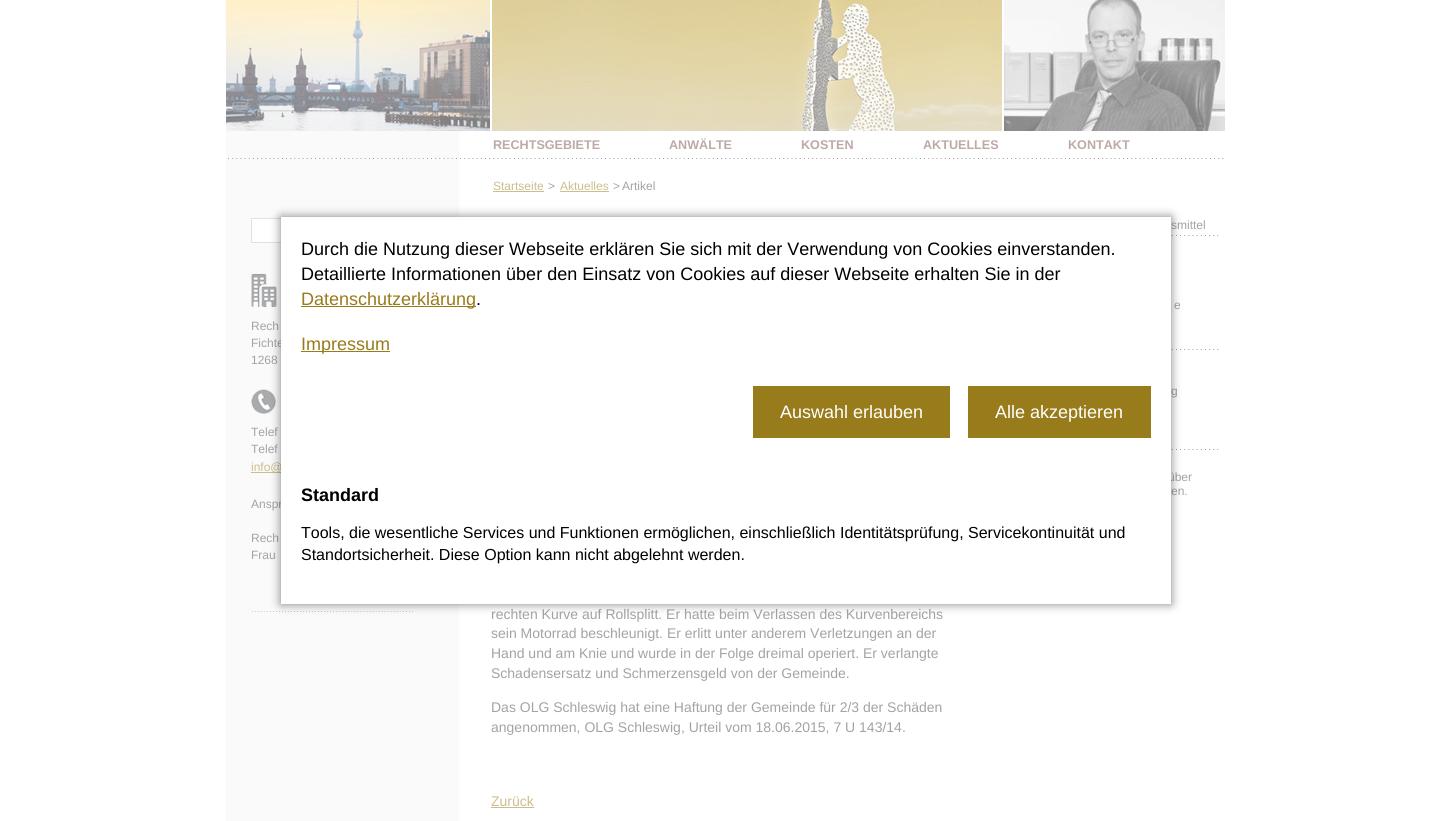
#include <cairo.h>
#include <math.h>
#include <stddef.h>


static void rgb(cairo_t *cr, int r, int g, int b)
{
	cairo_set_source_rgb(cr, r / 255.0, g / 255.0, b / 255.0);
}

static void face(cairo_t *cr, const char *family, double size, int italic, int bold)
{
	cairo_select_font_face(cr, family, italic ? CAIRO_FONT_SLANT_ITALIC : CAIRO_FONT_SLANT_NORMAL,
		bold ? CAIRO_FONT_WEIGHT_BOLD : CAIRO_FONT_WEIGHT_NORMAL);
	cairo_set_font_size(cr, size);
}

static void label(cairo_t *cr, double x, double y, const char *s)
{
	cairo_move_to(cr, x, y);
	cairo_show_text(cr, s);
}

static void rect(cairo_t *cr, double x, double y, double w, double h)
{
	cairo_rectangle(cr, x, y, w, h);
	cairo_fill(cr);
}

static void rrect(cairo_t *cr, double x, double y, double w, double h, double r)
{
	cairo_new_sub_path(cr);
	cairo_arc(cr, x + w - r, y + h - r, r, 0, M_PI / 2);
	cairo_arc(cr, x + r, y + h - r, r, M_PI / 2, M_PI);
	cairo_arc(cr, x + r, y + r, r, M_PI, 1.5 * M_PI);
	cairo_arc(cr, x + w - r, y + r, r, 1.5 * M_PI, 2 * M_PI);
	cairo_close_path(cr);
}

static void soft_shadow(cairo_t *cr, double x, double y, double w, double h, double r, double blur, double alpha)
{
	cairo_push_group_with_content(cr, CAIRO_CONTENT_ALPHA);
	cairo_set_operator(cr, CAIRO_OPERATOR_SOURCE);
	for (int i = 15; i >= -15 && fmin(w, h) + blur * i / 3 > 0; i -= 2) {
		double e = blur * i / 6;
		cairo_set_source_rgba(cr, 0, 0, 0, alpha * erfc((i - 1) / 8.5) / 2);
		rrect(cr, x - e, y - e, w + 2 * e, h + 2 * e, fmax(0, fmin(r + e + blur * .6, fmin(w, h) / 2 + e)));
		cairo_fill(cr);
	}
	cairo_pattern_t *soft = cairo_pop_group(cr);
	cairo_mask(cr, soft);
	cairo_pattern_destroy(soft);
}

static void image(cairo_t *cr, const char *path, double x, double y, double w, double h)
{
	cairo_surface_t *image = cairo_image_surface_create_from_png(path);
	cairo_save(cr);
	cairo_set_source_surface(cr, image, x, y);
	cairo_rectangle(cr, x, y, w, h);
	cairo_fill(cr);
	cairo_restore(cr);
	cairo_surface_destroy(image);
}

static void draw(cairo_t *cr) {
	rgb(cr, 255, 255, 255);
	cairo_paint(cr);
	rgb(cr, 250, 250, 250);
	rect(cr, 226, 131, 233, 690);
	image(cr, "image0.png", 226, 0, 264, 131);
	image(cr, "image1.png", 492, 0, 510, 131);
	image(cr, "image2.png", 1004, 0, 221, 131);
	image(cr, "image3.png", 228, 158, 996, 1);
	face(cr, "Liberation Sans", 12.6, 0, 1);
	rgb(cr, 189, 169, 165);
	label(cr, 493, 149, "RECHTSGEBIETE");
	label(cr, 669, 149, "ANWÄLTE");
	label(cr, 801, 149, "KOSTEN");
	label(cr, 923, 149, "AKTUELLES");
	label(cr, 1068, 149, "KONTAKT");
	rgb(cr, 255, 255, 255);
	rect(cr, 252, 219, 29, 23);
	cairo_rectangle(cr, 251.5, 218.5, 154, 24);
	rgb(cr, 225, 225, 225);
	cairo_set_line_width(cr, 1);
	cairo_stroke(cr);
	image(cr, "image4.png", 251, 273, 26, 34);
	face(cr, "Liberation Sans", 12, 0, 0);
	rgb(cr, 163, 163, 163);
	label(cr, 251, 330, "Rech");
	label(cr, 251, 347, "Fichte");
	label(cr, 251, 364, "1268");
	image(cr, "image5.png", 251, 389, 25, 25);
	label(cr, 251, 436, "Telef");
	label(cr, 251, 453, "Telef");
	rgb(cr, 204, 189, 141);
	rect(cr, 251, 472, 30, 1);
	label(cr, 251, 471, "info@");
	rgb(cr, 163, 163, 163);
	label(cr, 251, 508, "Anspr");
	label(cr, 251, 542, "Rech");
	label(cr, 251, 559, "Frau");
	image(cr, "image6.png", 251, 611, 162, 1);
	rgb(cr, 204, 189, 141);
	label(cr, 493, 190, "Startseite");
	rect(cr, 493, 191, 51, 1);
	rgb(cr, 163, 163, 163);
	label(cr, 548, 190, ">");
	rgb(cr, 204, 189, 141);
	label(cr, 560, 190, "Aktuelles");
	rect(cr, 560, 191, 49, 1);
	rgb(cr, 163, 163, 163);
	label(cr, 613, 190, ">");
	label(cr, 622, 190, "Artikel");
	face(cr, "Liberation Sans", 14, 0, 0);
	label(cr, 491, 619, "rechten Kurve auf Rollsplitt. Er hatte beim Verlassen des Kurvenbereichs");
	label(cr, 491, 638, "sein Motorrad beschleunigt. Er erlitt unter anderem Verletzungen an der");
	label(cr, 491, 658, "Hand und am Knie und wurde in der Folge dreimal operiert. Er verlangte");
	label(cr, 491, 678, "Schadensersatz und Schmerzensgeld von der Gemeinde.");
	label(cr, 491, 712, "Das OLG Schleswig hat eine Haftung der Gemeinde für 2/3 der Schäden");
	label(cr, 491, 732, "angenommen, OLG Schleswig, Urteil vom 18.06.2015, 7 U 143/14.");
	rgb(cr, 204, 189, 141);
	label(cr, 491, 806, "Zurück");
	rect(cr, 491, 807, 43, 1);
	image(cr, "image7.png", 1171, 235, 48, 1);
	face(cr, "Liberation Sans", 12, 0, 0);
	rgb(cr, 163, 163, 163);
	label(cr, 1171, 229, "smittel");
	label(cr, 1174, 309, "e");
	image(cr, "image7.png", 1171, 349, 48, 1);
	label(cr, 1171, 395, "g");
	image(cr, "image7.png", 1171, 449, 48, 1);
	label(cr, 1168, 481, "über");
	label(cr, 1171, 495, "en.");
	rgb(cr, 0, 0, 0);
	soft_shadow(cr, 281, 217, 890, 387, 0, 5, 0.5);
	rgb(cr, 255, 255, 255);
	rect(cr, 281, 217, 890, 387);
	face(cr, "Liberation Sans", 18, 0, 0);
	rgb(cr, 0, 0, 0);
	label(cr, 301, 255, "Durch die Nutzung dieser Webseite erklären Sie sich mit der Verwendung von Cookies einverstanden.");
	label(cr, 301, 280, "Detaillierte Informationen über den Einsatz von Cookies auf dieser Webseite erhalten Sie in der");
	rgb(cr, 152, 123, 26);
	rect(cr, 301, 306, 175, 1);
	label(cr, 301, 305, "Datenschutzerklärung");
	rgb(cr, 0, 0, 0);
	label(cr, 476, 305, ".");
	rgb(cr, 152, 123, 26);
	rect(cr, 301, 351, 89, 1);
	label(cr, 301, 350, "Impressum");
	rect(cr, 753, 386, 197, 52);
	rgb(cr, 255, 255, 255);
	label(cr, 780, 418, "Auswahl erlauben");
	rgb(cr, 152, 123, 26);
	rect(cr, 968, 386, 183, 52);
	rgb(cr, 255, 255, 255);
	label(cr, 995, 418, "Alle akzeptieren");
	face(cr, "Liberation Sans", 18, 0, 1);
	rgb(cr, 0, 0, 0);
	label(cr, 301, 501, "Standard");
	face(cr, "Liberation Sans", 16, 0, 0);
	label(cr, 301, 538, "Tools, die wesentliche Services und Funktionen ermöglichen, einschließlich Identitätsprüfung, Servicekontinuität und");
	label(cr, 301, 560, "Standortsicherheit. Diese Option kann nicht abgelehnt werden.");
}

int main(void) {
	cairo_surface_t *surface = cairo_image_surface_create(CAIRO_FORMAT_RGB24, 1451, 821);
	cairo_t *cr = cairo_create(surface);
	cairo_font_options_t *options = cairo_font_options_create();
	cairo_font_options_set_hint_metrics(options, CAIRO_HINT_METRICS_OFF);
	cairo_font_options_set_hint_style(options, CAIRO_HINT_STYLE_NONE);
	cairo_set_font_options(cr, options);
	cairo_set_miter_limit(cr, 4);
	draw(cr);
	cairo_surface_write_to_png(surface, "render.png");
	cairo_font_options_destroy(options);
	cairo_destroy(cr);
	cairo_surface_destroy(surface);
	return 0;
}
